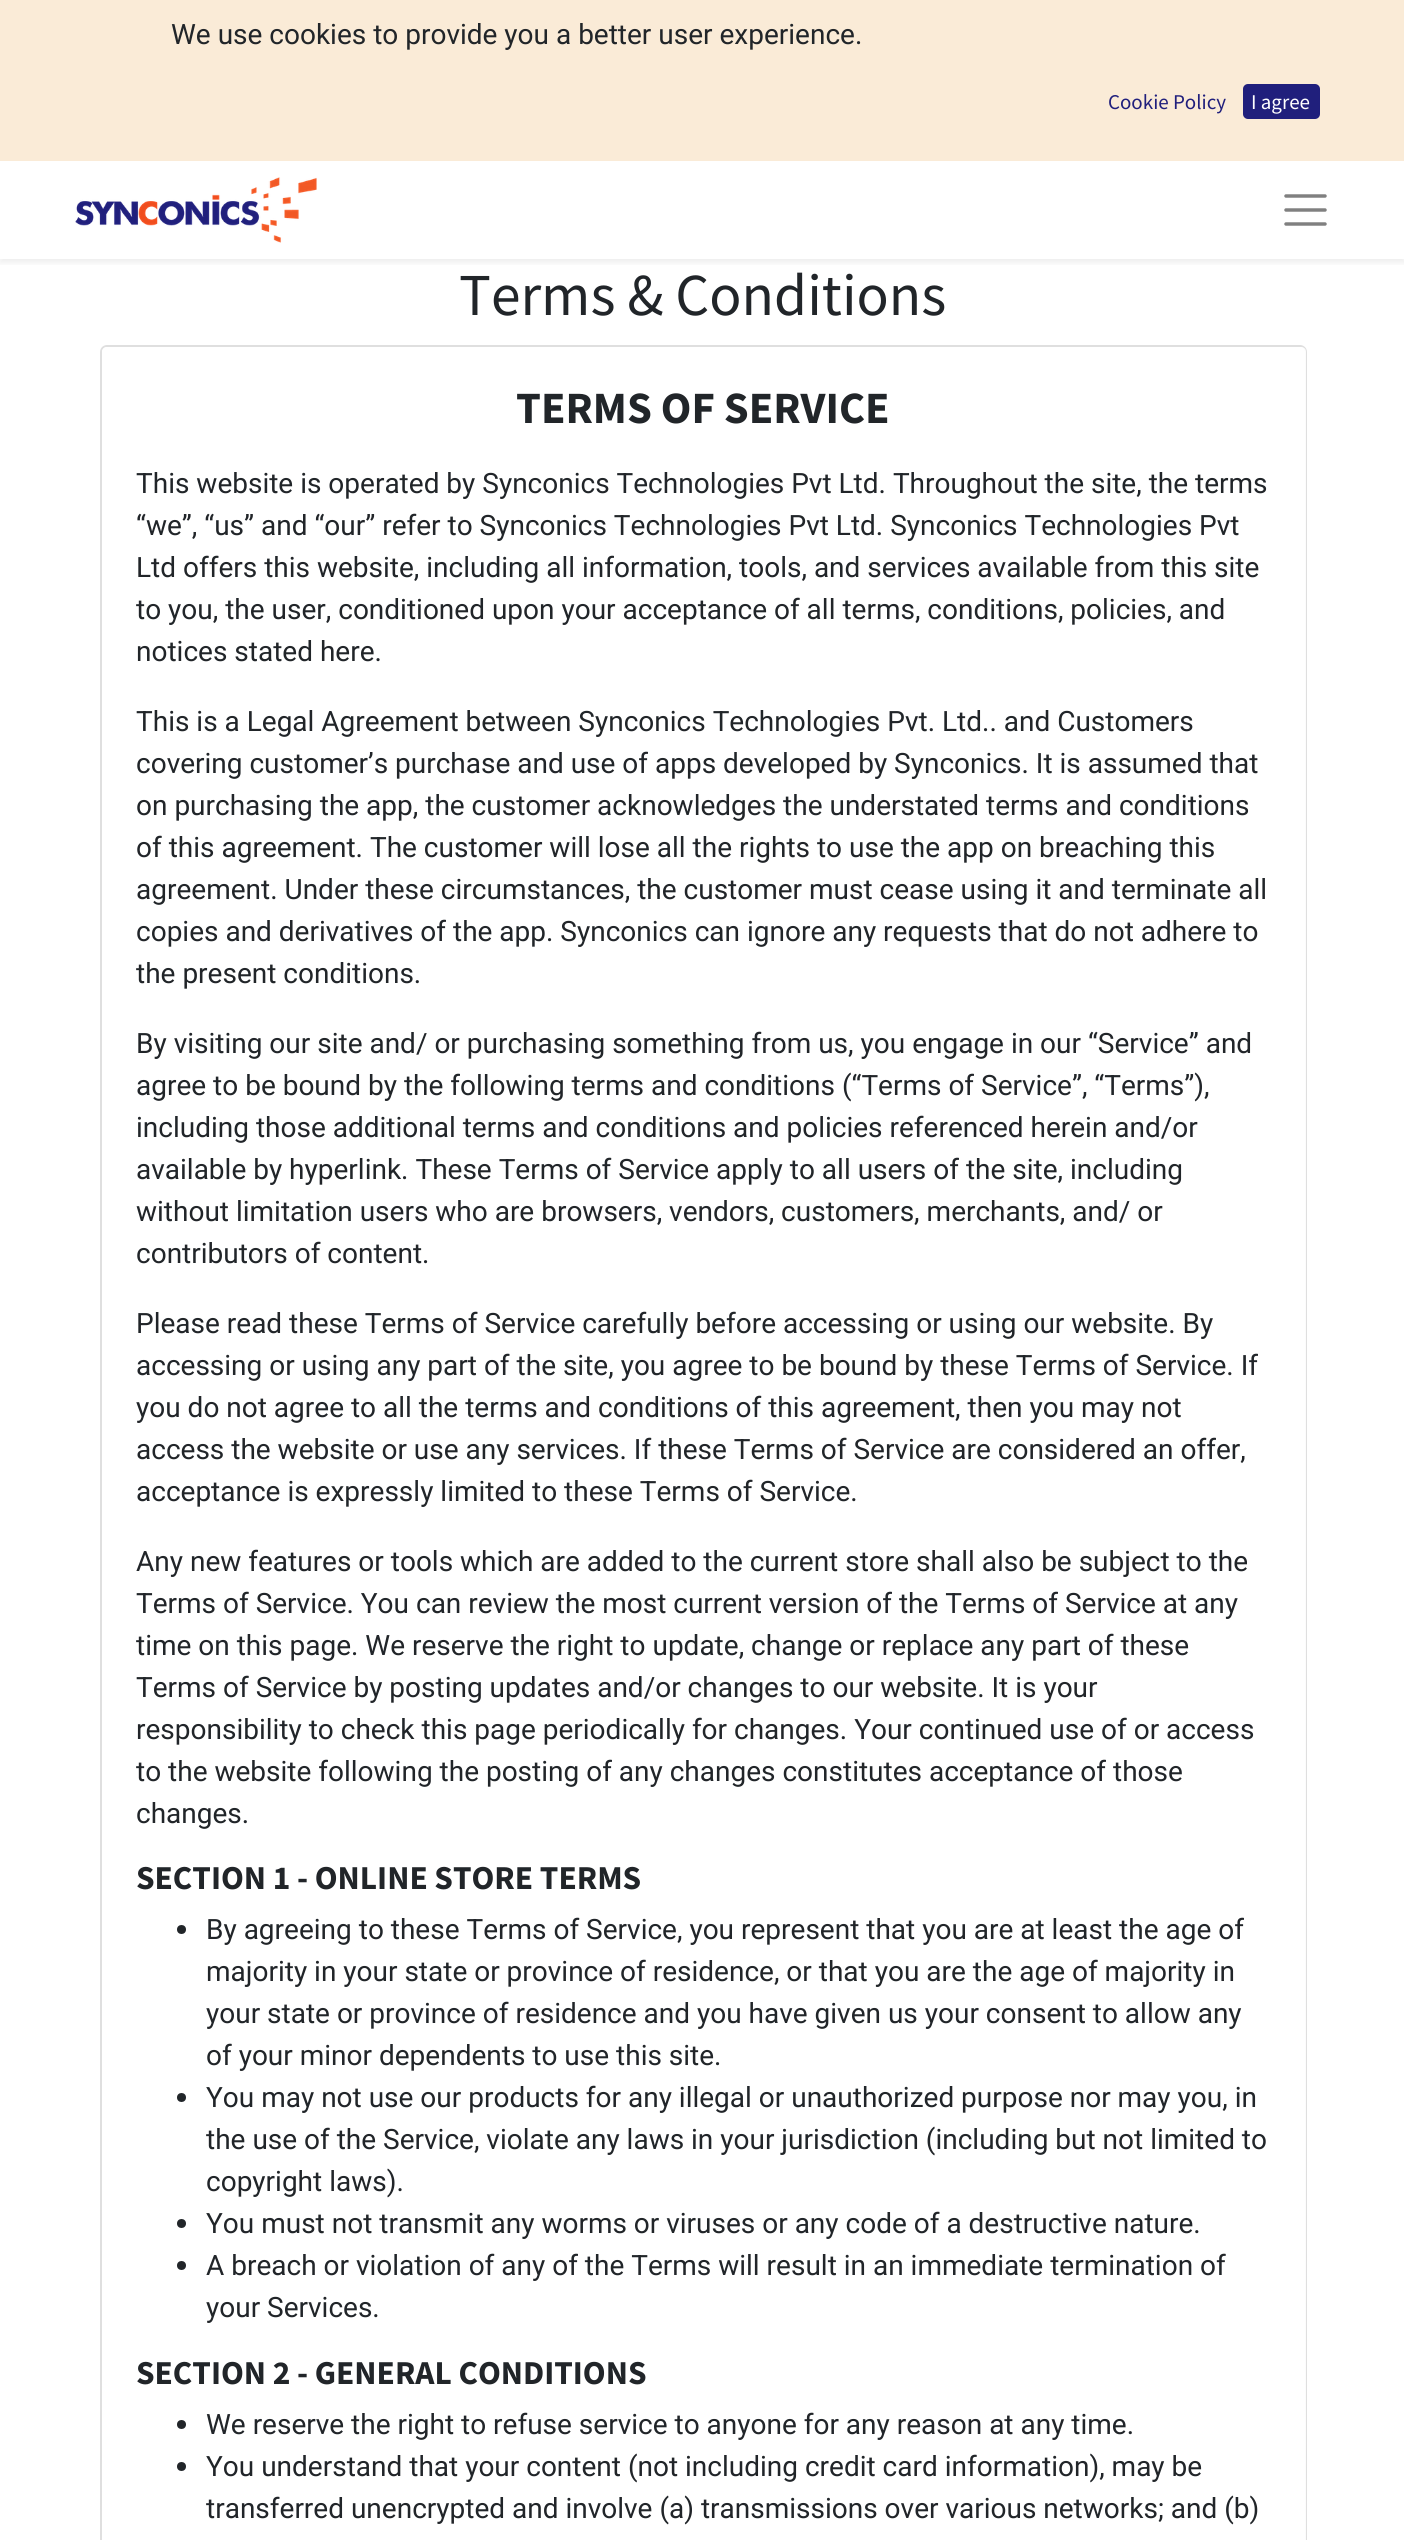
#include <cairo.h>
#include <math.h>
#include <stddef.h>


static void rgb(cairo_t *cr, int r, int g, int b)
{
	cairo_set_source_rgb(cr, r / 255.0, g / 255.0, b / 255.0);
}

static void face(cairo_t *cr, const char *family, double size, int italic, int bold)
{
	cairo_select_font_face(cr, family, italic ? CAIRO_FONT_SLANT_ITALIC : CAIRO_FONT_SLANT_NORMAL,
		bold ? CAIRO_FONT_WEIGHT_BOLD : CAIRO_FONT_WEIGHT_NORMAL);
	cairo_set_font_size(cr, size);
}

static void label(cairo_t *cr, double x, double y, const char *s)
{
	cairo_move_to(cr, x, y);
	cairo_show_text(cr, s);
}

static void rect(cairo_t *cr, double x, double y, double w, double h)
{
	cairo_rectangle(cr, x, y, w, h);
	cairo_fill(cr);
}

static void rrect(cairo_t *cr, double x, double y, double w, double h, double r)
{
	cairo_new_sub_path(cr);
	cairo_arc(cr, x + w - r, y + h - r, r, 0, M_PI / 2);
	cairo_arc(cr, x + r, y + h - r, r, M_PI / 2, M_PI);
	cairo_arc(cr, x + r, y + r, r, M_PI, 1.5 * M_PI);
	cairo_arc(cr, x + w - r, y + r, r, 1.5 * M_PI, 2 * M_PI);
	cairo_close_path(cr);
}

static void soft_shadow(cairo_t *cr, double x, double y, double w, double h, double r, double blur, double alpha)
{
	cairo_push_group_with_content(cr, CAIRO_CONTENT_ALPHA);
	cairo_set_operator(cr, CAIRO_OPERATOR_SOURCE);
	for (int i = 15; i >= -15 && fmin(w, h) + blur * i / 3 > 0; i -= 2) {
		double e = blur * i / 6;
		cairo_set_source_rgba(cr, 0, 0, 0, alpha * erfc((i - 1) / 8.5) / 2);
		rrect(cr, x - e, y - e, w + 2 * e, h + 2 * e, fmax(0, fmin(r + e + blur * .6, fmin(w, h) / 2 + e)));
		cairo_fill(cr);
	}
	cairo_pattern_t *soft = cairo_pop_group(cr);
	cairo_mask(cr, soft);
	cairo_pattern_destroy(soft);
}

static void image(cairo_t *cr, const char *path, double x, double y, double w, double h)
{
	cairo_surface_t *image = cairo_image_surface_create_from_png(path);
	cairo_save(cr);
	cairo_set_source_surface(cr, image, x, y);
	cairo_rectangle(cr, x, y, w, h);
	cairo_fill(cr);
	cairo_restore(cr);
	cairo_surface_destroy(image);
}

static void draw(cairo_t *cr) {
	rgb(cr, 255, 255, 255);
	cairo_paint(cr);
	cairo_save(cr);
	cairo_rectangle(cr, 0, 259, 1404, 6);
	cairo_clip(cr);
	rgb(cr, 0, 0, 0);
	soft_shadow(cr, 0, 165, 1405, 98, 0, 3.5, 0.07);
	cairo_restore(cr);
	rgb(cr, 250, 235, 215);
	rect(cr, 0, 0, 1404, 161);
	face(cr, "Roboto", 28, 0, 0);
	rgb(cr, 33, 37, 41);
	label(cr, 171, 44, "We use cookies to provide you a better user experience.");
	face(cr, "Source Sans Pro", 21, 0, 0);
	rgb(cr, 32, 31, 124);
	label(cr, 1108, 109, "Cookie Policy");
	rrect(cr, 1243, 84, 77, 35, 5);
	cairo_fill(cr);
	rgb(cr, 255, 255, 255);
	label(cr, 1251, 109, "I agree");
	image(cr, "image0.png", 75, 177, 242, 66);
	cairo_new_path(cr);
	cairo_move_to(cr, 1286, 196);
	cairo_line_to(cr, 1325, 196);
	cairo_move_to(cr, 1286, 210);
	cairo_line_to(cr, 1325, 210);
	cairo_move_to(cr, 1286, 224);
	cairo_line_to(cr, 1325, 224);
	rgb(cr, 128, 128, 128);
	cairo_set_line_width(cr, 3.5);
	cairo_set_line_cap(cr, CAIRO_LINE_CAP_ROUND);
	cairo_stroke(cr);
	face(cr, "Source Sans Pro", 59.5, 0, 0);
	rgb(cr, 33, 37, 41);
	label(cr, 459, 315, "Terms & Conditions");
	rrect(cr, 101, 346, 1205, 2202, 6);
	rgb(cr, 223, 223, 223);
	cairo_set_line_width(cr, 2);
	cairo_set_line_cap(cr, CAIRO_LINE_CAP_BUTT);
	cairo_stroke(cr);
	cairo_set_source_rgba(cr, 1, 1, 1, 0.9);
	cairo_new_path(cr);
	cairo_move_to(cr, 107, 347);
	cairo_line_to(cr, 1301, 347);
	cairo_curve_to(cr, 1304, 347, 1306, 349, 1306, 352);
	cairo_line_to(cr, 1306, 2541);
	cairo_line_to(cr, 102, 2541);
	cairo_line_to(cr, 102, 352);
	cairo_curve_to(cr, 102, 349, 104, 347, 107, 347);
	cairo_close_path(cr);
	cairo_fill(cr);
	face(cr, "Source Sans Pro", 44.75, 0, 1);
	rgb(cr, 33, 37, 41);
	label(cr, 516, 423, "TERMS OF SERVICE");
	face(cr, "Roboto", 28, 0, 0);
	label(cr, 136, 493, "This website is operated by Synconics Technologies Pvt Ltd. Throughout the site, the terms");
	label(cr, 136, 535, "“we”, “us” and “our” refer to Synconics Technologies Pvt Ltd. Synconics Technologies Pvt");
	label(cr, 136, 577, "Ltd offers this website, including all information, tools, and services available from this site");
	label(cr, 136, 619, "to you, the user, conditioned upon your acceptance of all terms, conditions, policies, and");
	label(cr, 136, 661, "notices stated here.");
	label(cr, 136, 731, "This is a Legal Agreement between Synconics Technologies Pvt. Ltd.. and Customers");
	label(cr, 136, 773, "covering customer’s purchase and use of apps developed by Synconics. It is assumed that");
	label(cr, 136, 815, "on purchasing the app, the customer acknowledges the understated terms and conditions");
	label(cr, 136, 857, "of this agreement. The customer will lose all the rights to use the app on breaching this");
	label(cr, 136, 899, "agreement. Under these circumstances, the customer must cease using it and terminate all");
	label(cr, 136, 941, "copies and derivatives of the app. Synconics can ignore any requests that do not adhere to");
	label(cr, 136, 983, "the present conditions.");
	label(cr, 136, 1053, "By visiting our site and/ or purchasing something from us, you engage in our “Service” and");
	label(cr, 136, 1095, "agree to be bound by the following terms and conditions (“Terms of Service”, “Terms”),");
	label(cr, 136, 1137, "including those additional terms and conditions and policies referenced herein and/or");
	label(cr, 136, 1179, "available by hyperlink. These Terms of Service apply to all users of the site, including");
	label(cr, 136, 1221, "without limitation users who are browsers, vendors, customers, merchants, and/ or");
	label(cr, 136, 1263, "contributors of content.");
	label(cr, 136, 1333, "Please read these Terms of Service carefully before accessing or using our website. By");
	label(cr, 136, 1375, "accessing or using any part of the site, you agree to be bound by these Terms of Service. If");
	label(cr, 136, 1417, "you do not agree to all the terms and conditions of this agreement, then you may not");
	label(cr, 136, 1459, "access the website or use any services. If these Terms of Service are considered an offer,");
	label(cr, 136, 1501, "acceptance is expressly limited to these Terms of Service.");
	label(cr, 136, 1571, "Any new features or tools which are added to the current store shall also be subject to the");
	label(cr, 136, 1613, "Terms of Service. You can review the most current version of the Terms of Service at any");
	label(cr, 136, 1655, "time on this page. We reserve the right to update, change or replace any part of these");
	label(cr, 136, 1697, "Terms of Service by posting updates and/or changes to our website. It is your");
	label(cr, 136, 1739, "responsibility to check this page periodically for changes. Your continued use of or access");
	label(cr, 136, 1781, "to the website following the posting of any changes constitutes acceptance of those");
	label(cr, 136, 1823, "changes.");
	face(cr, "Source Sans Pro", 33.4, 0, 1);
	label(cr, 136, 1889, "SECTION 1 - ONLINE STORE TERMS");
	cairo_new_path(cr);
	cairo_arc(cr, 181.5, 1929.5, 4.5, 0, 2 * M_PI);
	cairo_fill(cr);
	face(cr, "Roboto", 28, 0, 0);
	label(cr, 206, 1939, "By agreeing to these Terms of Service, you represent that you are at least the age of");
	label(cr, 206, 1981, "majority in your state or province of residence, or that you are the age of majority in");
	label(cr, 206, 2023, "your state or province of residence and you have given us your consent to allow any");
	label(cr, 206, 2065, "of your minor dependents to use this site.");
	cairo_new_path(cr);
	cairo_arc(cr, 181.5, 2097.5, 4.5, 0, 2 * M_PI);
	cairo_fill(cr);
	label(cr, 206, 2107, "You may not use our products for any illegal or unauthorized purpose nor may you, in");
	label(cr, 206, 2149, "the use of the Service, violate any laws in your jurisdiction (including but not limited to");
	label(cr, 206, 2191, "copyright laws).");
	cairo_new_path(cr);
	cairo_arc(cr, 181.5, 2223.5, 4.5, 0, 2 * M_PI);
	cairo_fill(cr);
	label(cr, 206, 2233, "You must not transmit any worms or viruses or any code of a destructive nature.");
	cairo_new_path(cr);
	cairo_arc(cr, 181.5, 2265.5, 4.5, 0, 2 * M_PI);
	cairo_fill(cr);
	label(cr, 206, 2275, "A breach or violation of any of the Terms will result in an immediate termination of");
	label(cr, 206, 2317, "your Services.");
	face(cr, "Source Sans Pro", 33.4, 0, 1);
	label(cr, 136, 2384, "SECTION 2 - GENERAL CONDITIONS");
	cairo_new_path(cr);
	cairo_arc(cr, 181.5, 2424.5, 4.5, 0, 2 * M_PI);
	cairo_fill(cr);
	face(cr, "Roboto", 28, 0, 0);
	label(cr, 206, 2434, "We reserve the right to refuse service to anyone for any reason at any time.");
	cairo_new_path(cr);
	cairo_arc(cr, 181.5, 2466.5, 4.5, 0, 2 * M_PI);
	cairo_fill(cr);
	label(cr, 206, 2476, "You understand that your content (not including credit card information), may be");
	label(cr, 206, 2518, "transferred unencrypted and involve (a) transmissions over various networks; and (b)");
}

int main(void) {
	cairo_surface_t *surface = cairo_image_surface_create(CAIRO_FORMAT_RGB24, 1404, 2540);
	cairo_t *cr = cairo_create(surface);
	cairo_font_options_t *options = cairo_font_options_create();
	cairo_font_options_set_hint_metrics(options, CAIRO_HINT_METRICS_OFF);
	cairo_font_options_set_hint_style(options, CAIRO_HINT_STYLE_NONE);
	cairo_set_font_options(cr, options);
	cairo_set_miter_limit(cr, 4);
	draw(cr);
	cairo_surface_write_to_png(surface, "render.png");
	cairo_font_options_destroy(options);
	cairo_destroy(cr);
	cairo_surface_destroy(surface);
	return 0;
}
